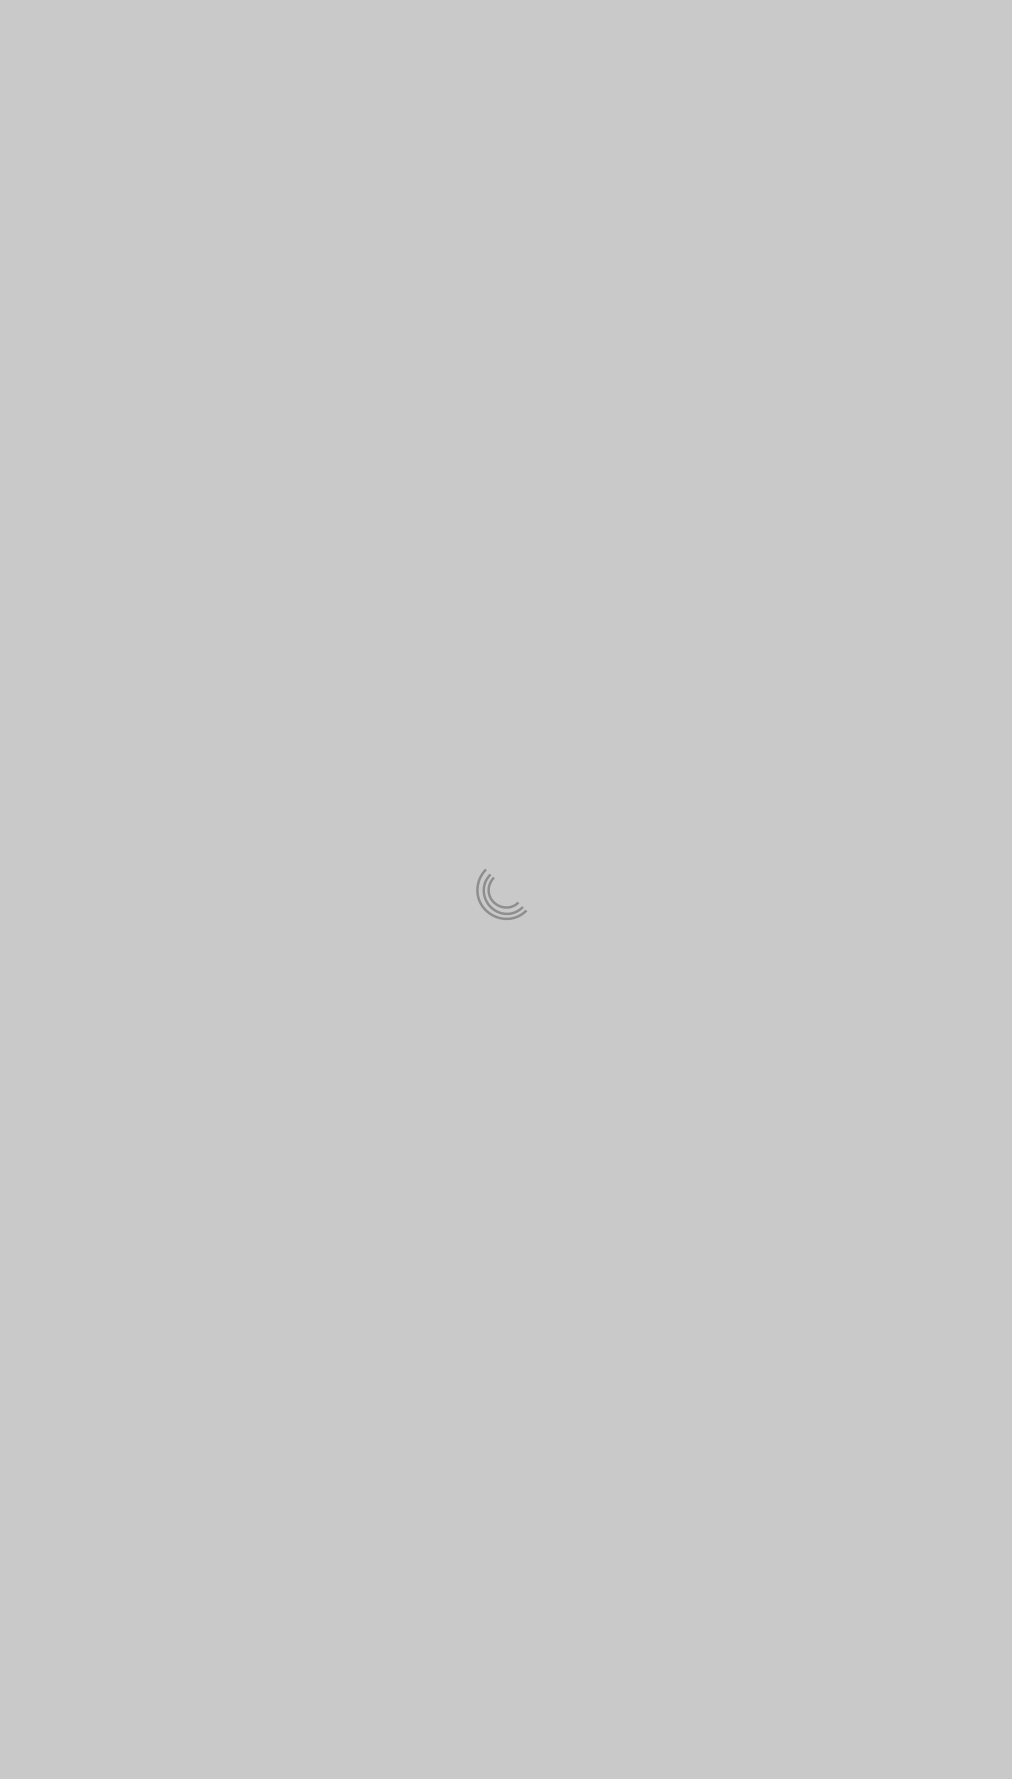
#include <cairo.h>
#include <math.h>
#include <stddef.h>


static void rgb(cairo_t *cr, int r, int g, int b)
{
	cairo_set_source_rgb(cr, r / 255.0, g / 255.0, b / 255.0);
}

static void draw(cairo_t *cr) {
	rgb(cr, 201, 201, 201);
	cairo_paint(cr);
	cairo_new_path(cr);
	cairo_move_to(cr, 526.5, 910.5);
	cairo_curve_to(cr, 506.5, 930.5, 472.5, 912, 478, 884.5);
	cairo_curve_to(cr, 479, 879, 482, 873.5, 486, 869.5);
	cairo_move_to(cr, 523, 907);
	cairo_curve_to(cr, 520, 910, 516, 912.5, 511.5, 913.5);
	cairo_curve_to(cr, 489, 917.5, 474.5, 890.5, 490.5, 874.5);
	cairo_move_to(cr, 518.5, 902.5);
	cairo_curve_to(cr, 506.5, 914.5, 485.5, 903.5, 489, 886.5);
	cairo_curve_to(cr, 490, 883, 491.5, 880, 494, 877.5);
	rgb(cr, 142, 142, 142);
	cairo_set_line_width(cr, 2.5);
	cairo_stroke(cr);
}

int main(void) {
	cairo_surface_t *surface = cairo_image_surface_create(CAIRO_FORMAT_RGB24, 1012, 1779);
	cairo_t *cr = cairo_create(surface);
	cairo_font_options_t *options = cairo_font_options_create();
	cairo_font_options_set_hint_metrics(options, CAIRO_HINT_METRICS_OFF);
	cairo_font_options_set_hint_style(options, CAIRO_HINT_STYLE_NONE);
	cairo_set_font_options(cr, options);
	cairo_set_miter_limit(cr, 4);
	draw(cr);
	cairo_surface_write_to_png(surface, "render.png");
	cairo_font_options_destroy(options);
	cairo_destroy(cr);
	cairo_surface_destroy(surface);
	return 0;
}
